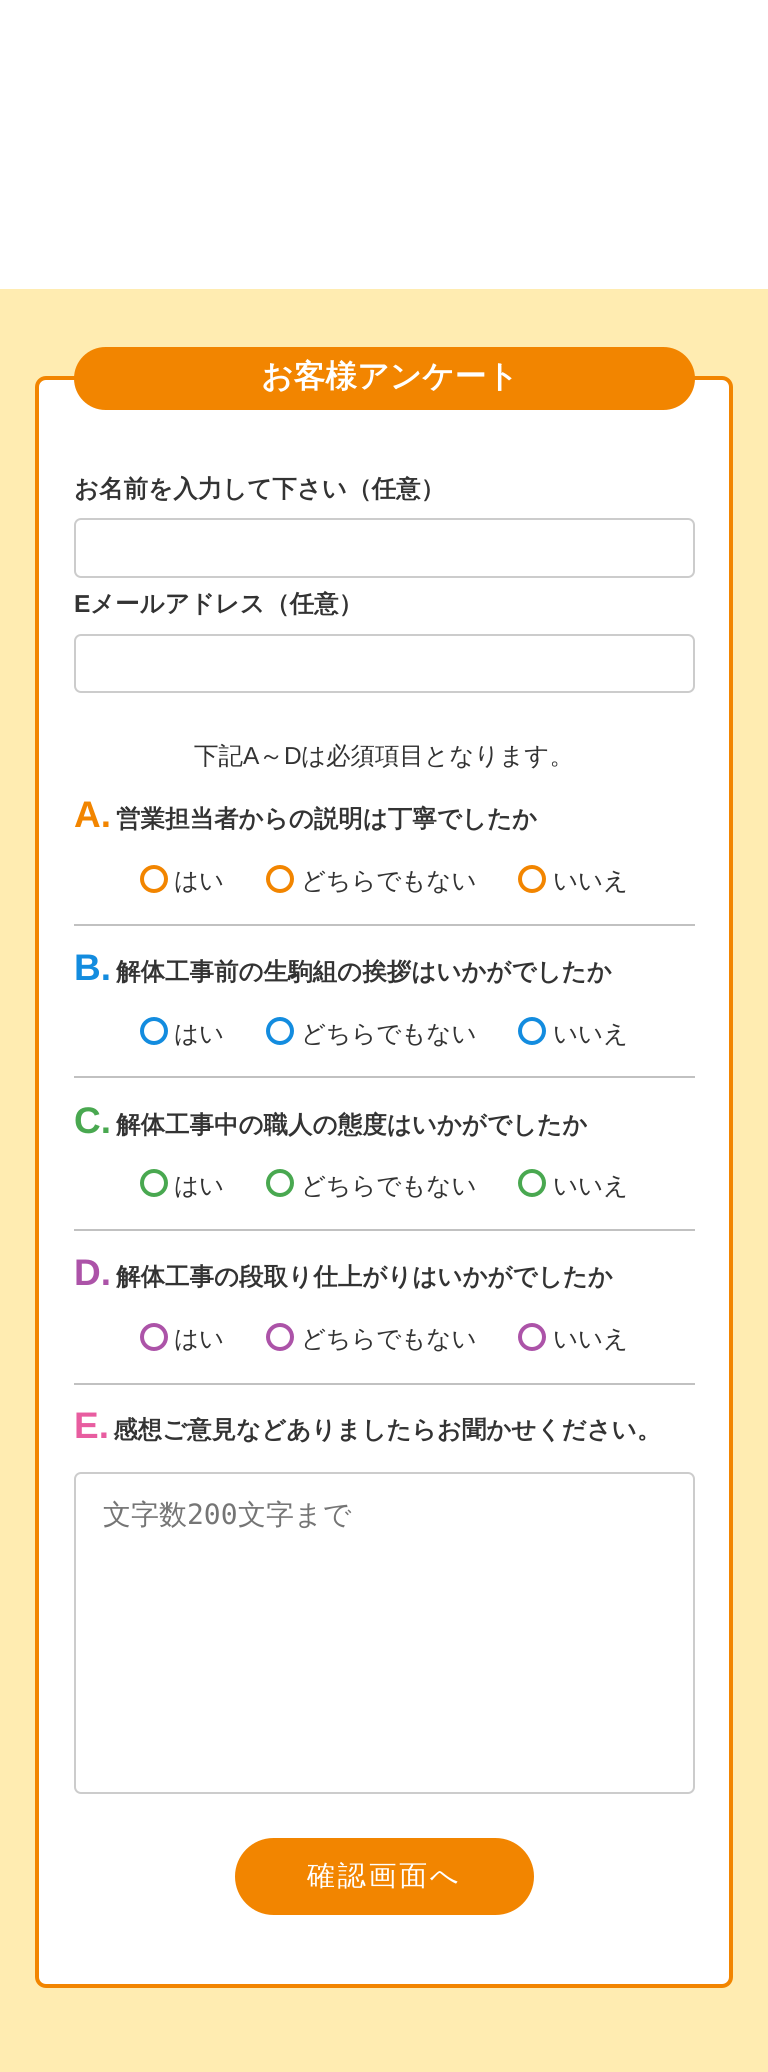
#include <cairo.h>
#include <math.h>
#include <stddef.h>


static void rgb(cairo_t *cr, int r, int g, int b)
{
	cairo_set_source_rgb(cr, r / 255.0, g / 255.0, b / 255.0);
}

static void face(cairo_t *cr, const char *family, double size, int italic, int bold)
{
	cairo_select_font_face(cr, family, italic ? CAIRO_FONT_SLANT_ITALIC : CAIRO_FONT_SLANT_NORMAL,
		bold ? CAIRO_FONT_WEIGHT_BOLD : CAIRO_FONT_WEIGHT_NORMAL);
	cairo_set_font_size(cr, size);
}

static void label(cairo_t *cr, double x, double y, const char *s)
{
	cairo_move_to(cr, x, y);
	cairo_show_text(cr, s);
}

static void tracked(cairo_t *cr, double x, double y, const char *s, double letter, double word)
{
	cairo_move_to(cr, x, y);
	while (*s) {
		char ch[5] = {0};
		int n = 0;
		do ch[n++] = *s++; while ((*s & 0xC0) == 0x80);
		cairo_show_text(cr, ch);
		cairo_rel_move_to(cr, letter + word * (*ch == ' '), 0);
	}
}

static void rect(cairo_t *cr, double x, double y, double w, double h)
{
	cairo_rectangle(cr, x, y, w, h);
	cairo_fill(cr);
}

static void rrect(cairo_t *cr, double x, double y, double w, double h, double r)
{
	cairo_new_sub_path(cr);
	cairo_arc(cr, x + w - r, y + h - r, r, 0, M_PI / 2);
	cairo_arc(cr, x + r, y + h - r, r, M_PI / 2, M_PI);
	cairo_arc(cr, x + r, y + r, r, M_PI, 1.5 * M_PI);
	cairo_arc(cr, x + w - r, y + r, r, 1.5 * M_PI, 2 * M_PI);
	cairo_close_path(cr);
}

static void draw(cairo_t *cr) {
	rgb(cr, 255, 236, 177);
	cairo_paint(cr);
	rgb(cr, 255, 255, 255);
	rect(cr, 0, 0, 768, 289);
	rrect(cr, 37, 378, 694, 1608, 9);
	cairo_fill_preserve(cr);
	rgb(cr, 242, 133, 0);
	cairo_set_line_width(cr, 4);
	cairo_stroke(cr);
	rrect(cr, 74, 347, 621, 63, 31.5);
	cairo_fill(cr);
	face(cr, "WenQuanYi Zen Hei", 31.75, 0, 1);
	rgb(cr, 255, 255, 255);
	label(cr, 261, 387, "お客様アンケート");
	face(cr, "WenQuanYi Zen Hei", 24.5, 0, 1);
	rgb(cr, 51, 51, 51);
	label(cr, 74, 497, "お名前を入力して下さい（任意）");
	rrect(cr, 75, 519, 619, 58, 6);
	rgb(cr, 204, 204, 204);
	cairo_set_line_width(cr, 2);
	cairo_stroke(cr);
	face(cr, "Liberation Sans", 24.5, 0, 1);
	rgb(cr, 51, 51, 51);
	label(cr, 74, 612, "E");
	face(cr, "WenQuanYi Zen Hei", 24.5, 0, 1);
	label(cr, 90, 612, "メールアドレス（任意）");
	rrect(cr, 75, 635, 619, 57, 6);
	rgb(cr, 204, 204, 204);
	cairo_stroke(cr);
	face(cr, "WenQuanYi Zen Hei Medium", 24.5, 0, 0);
	rgb(cr, 51, 51, 51);
	label(cr, 194, 764, "下記");
	face(cr, "Liberation Sans", 24.5, 0, 0);
	label(cr, 243, 764, "A");
	face(cr, "WenQuanYi Zen Hei Medium", 24.5, 0, 0);
	label(cr, 259, 764, "～");
	face(cr, "Liberation Sans", 24.5, 0, 0);
	label(cr, 284, 764, "D");
	face(cr, "WenQuanYi Zen Hei Medium", 24.5, 0, 0);
	label(cr, 301, 764, "は必須項目となります。");
	face(cr, "Liberation Sans", 37, 0, 1);
	rgb(cr, 242, 133, 0);
	label(cr, 74, 827, "A.");
	face(cr, "WenQuanYi Zen Hei", 24.5, 0, 1);
	rgb(cr, 51, 51, 51);
	label(cr, 116, 827, "営業担当者からの説明は丁寧でしたか");
	rgb(cr, 193, 193, 193);
	rect(cr, 74, 924, 621, 2);
	cairo_new_path(cr);
	cairo_arc(cr, 154, 879, 12, 0, 2 * M_PI);
	rgb(cr, 242, 133, 0);
	cairo_set_line_width(cr, 4);
	cairo_stroke(cr);
	face(cr, "WenQuanYi Zen Hei Medium", 24.5, 0, 0);
	rgb(cr, 51, 51, 51);
	label(cr, 174, 889, "はい");
	cairo_new_path(cr);
	cairo_arc(cr, 280, 879, 12, 0, 2 * M_PI);
	rgb(cr, 242, 133, 0);
	cairo_stroke(cr);
	rgb(cr, 51, 51, 51);
	label(cr, 301, 889, "どちらでもない");
	cairo_new_path(cr);
	cairo_arc(cr, 532, 879, 12, 0, 2 * M_PI);
	rgb(cr, 242, 133, 0);
	cairo_stroke(cr);
	rgb(cr, 51, 51, 51);
	label(cr, 553, 889, "いいえ");
	face(cr, "Liberation Sans", 37, 0, 1);
	rgb(cr, 19, 140, 223);
	label(cr, 74, 980, "B.");
	face(cr, "WenQuanYi Zen Hei", 24.5, 0, 1);
	rgb(cr, 51, 51, 51);
	label(cr, 116, 980, "解体工事前の生駒組の挨拶はいかがでしたか");
	rgb(cr, 193, 193, 193);
	rect(cr, 74, 1076, 621, 2);
	cairo_new_path(cr);
	cairo_arc(cr, 154, 1031, 12, 0, 2 * M_PI);
	rgb(cr, 19, 140, 223);
	cairo_stroke(cr);
	face(cr, "WenQuanYi Zen Hei Medium", 24.5, 0, 0);
	rgb(cr, 51, 51, 51);
	label(cr, 174, 1042, "はい");
	cairo_new_path(cr);
	cairo_arc(cr, 280, 1031, 12, 0, 2 * M_PI);
	rgb(cr, 19, 140, 223);
	cairo_stroke(cr);
	rgb(cr, 51, 51, 51);
	label(cr, 301, 1042, "どちらでもない");
	cairo_new_path(cr);
	cairo_arc(cr, 532, 1031, 12, 0, 2 * M_PI);
	rgb(cr, 19, 140, 223);
	cairo_stroke(cr);
	rgb(cr, 51, 51, 51);
	label(cr, 553, 1042, "いいえ");
	face(cr, "Liberation Sans", 37, 0, 1);
	rgb(cr, 73, 168, 80);
	label(cr, 74, 1133, "C.");
	face(cr, "WenQuanYi Zen Hei", 24.5, 0, 1);
	rgb(cr, 51, 51, 51);
	label(cr, 116, 1133, "解体工事中の職人の態度はいかがでしたか");
	rgb(cr, 193, 193, 193);
	rect(cr, 74, 1229, 621, 2);
	cairo_new_path(cr);
	cairo_arc(cr, 154, 1183, 12, 0, 2 * M_PI);
	rgb(cr, 73, 168, 80);
	cairo_stroke(cr);
	face(cr, "WenQuanYi Zen Hei Medium", 24.5, 0, 0);
	rgb(cr, 51, 51, 51);
	label(cr, 174, 1194, "はい");
	cairo_new_path(cr);
	cairo_arc(cr, 280, 1183, 12, 0, 2 * M_PI);
	rgb(cr, 73, 168, 80);
	cairo_stroke(cr);
	rgb(cr, 51, 51, 51);
	label(cr, 301, 1194, "どちらでもない");
	cairo_new_path(cr);
	cairo_arc(cr, 532, 1183, 12, 0, 2 * M_PI);
	rgb(cr, 73, 168, 80);
	cairo_stroke(cr);
	rgb(cr, 51, 51, 51);
	label(cr, 553, 1194, "いいえ");
	face(cr, "Liberation Sans", 37, 0, 1);
	rgb(cr, 172, 83, 168);
	label(cr, 74, 1285, "D.");
	face(cr, "WenQuanYi Zen Hei", 24.5, 0, 1);
	rgb(cr, 51, 51, 51);
	label(cr, 116, 1285, "解体工事の段取り仕上がりはいかがでしたか");
	rgb(cr, 193, 193, 193);
	rect(cr, 74, 1383, 621, 2);
	cairo_new_path(cr);
	cairo_arc(cr, 154, 1337, 12, 0, 2 * M_PI);
	rgb(cr, 172, 83, 168);
	cairo_stroke(cr);
	face(cr, "WenQuanYi Zen Hei Medium", 24.5, 0, 0);
	rgb(cr, 51, 51, 51);
	label(cr, 174, 1347, "はい");
	cairo_new_path(cr);
	cairo_arc(cr, 280, 1337, 12, 0, 2 * M_PI);
	rgb(cr, 172, 83, 168);
	cairo_stroke(cr);
	rgb(cr, 51, 51, 51);
	label(cr, 301, 1347, "どちらでもない");
	cairo_new_path(cr);
	cairo_arc(cr, 532, 1337, 12, 0, 2 * M_PI);
	rgb(cr, 172, 83, 168);
	cairo_stroke(cr);
	rgb(cr, 51, 51, 51);
	label(cr, 553, 1347, "いいえ");
	face(cr, "Liberation Sans", 37, 0, 1);
	rgb(cr, 232, 93, 160);
	label(cr, 74, 1438, "E.");
	face(cr, "WenQuanYi Zen Hei", 24.5, 0, 1);
	rgb(cr, 51, 51, 51);
	label(cr, 113, 1438, "感想ご意見などありましたらお聞かせください。");
	rrect(cr, 75, 1473, 619, 320, 6);
	rgb(cr, 204, 204, 204);
	cairo_set_line_width(cr, 2);
	cairo_stroke(cr);
	face(cr, "WenQuanYi Zen Hei Medium", 28, 0, 0);
	rgb(cr, 117, 117, 117);
	label(cr, 103, 1524, "文字数");
	face(cr, "DejaVu Sans Mono", 28, 0, 0);
	label(cr, 187, 1524, "200");
	face(cr, "WenQuanYi Zen Hei Medium", 28, 0, 0);
	label(cr, 238, 1524, "文字まで");
	rgb(cr, 242, 133, 0);
	rrect(cr, 236, 1839, 297, 75, 37.5);
	cairo_fill_preserve(cr);
	cairo_stroke(cr);
	rgb(cr, 255, 255, 255);
	tracked(cr, 307, 1885, "確認画面へ", 2.75, 0);
}

int main(void) {
	cairo_surface_t *surface = cairo_image_surface_create(CAIRO_FORMAT_RGB24, 768, 2072);
	cairo_t *cr = cairo_create(surface);
	cairo_font_options_t *options = cairo_font_options_create();
	cairo_font_options_set_hint_metrics(options, CAIRO_HINT_METRICS_OFF);
	cairo_font_options_set_hint_style(options, CAIRO_HINT_STYLE_NONE);
	cairo_set_font_options(cr, options);
	cairo_set_miter_limit(cr, 4);
	draw(cr);
	cairo_surface_write_to_png(surface, "render.png");
	cairo_font_options_destroy(options);
	cairo_destroy(cr);
	cairo_surface_destroy(surface);
	return 0;
}
